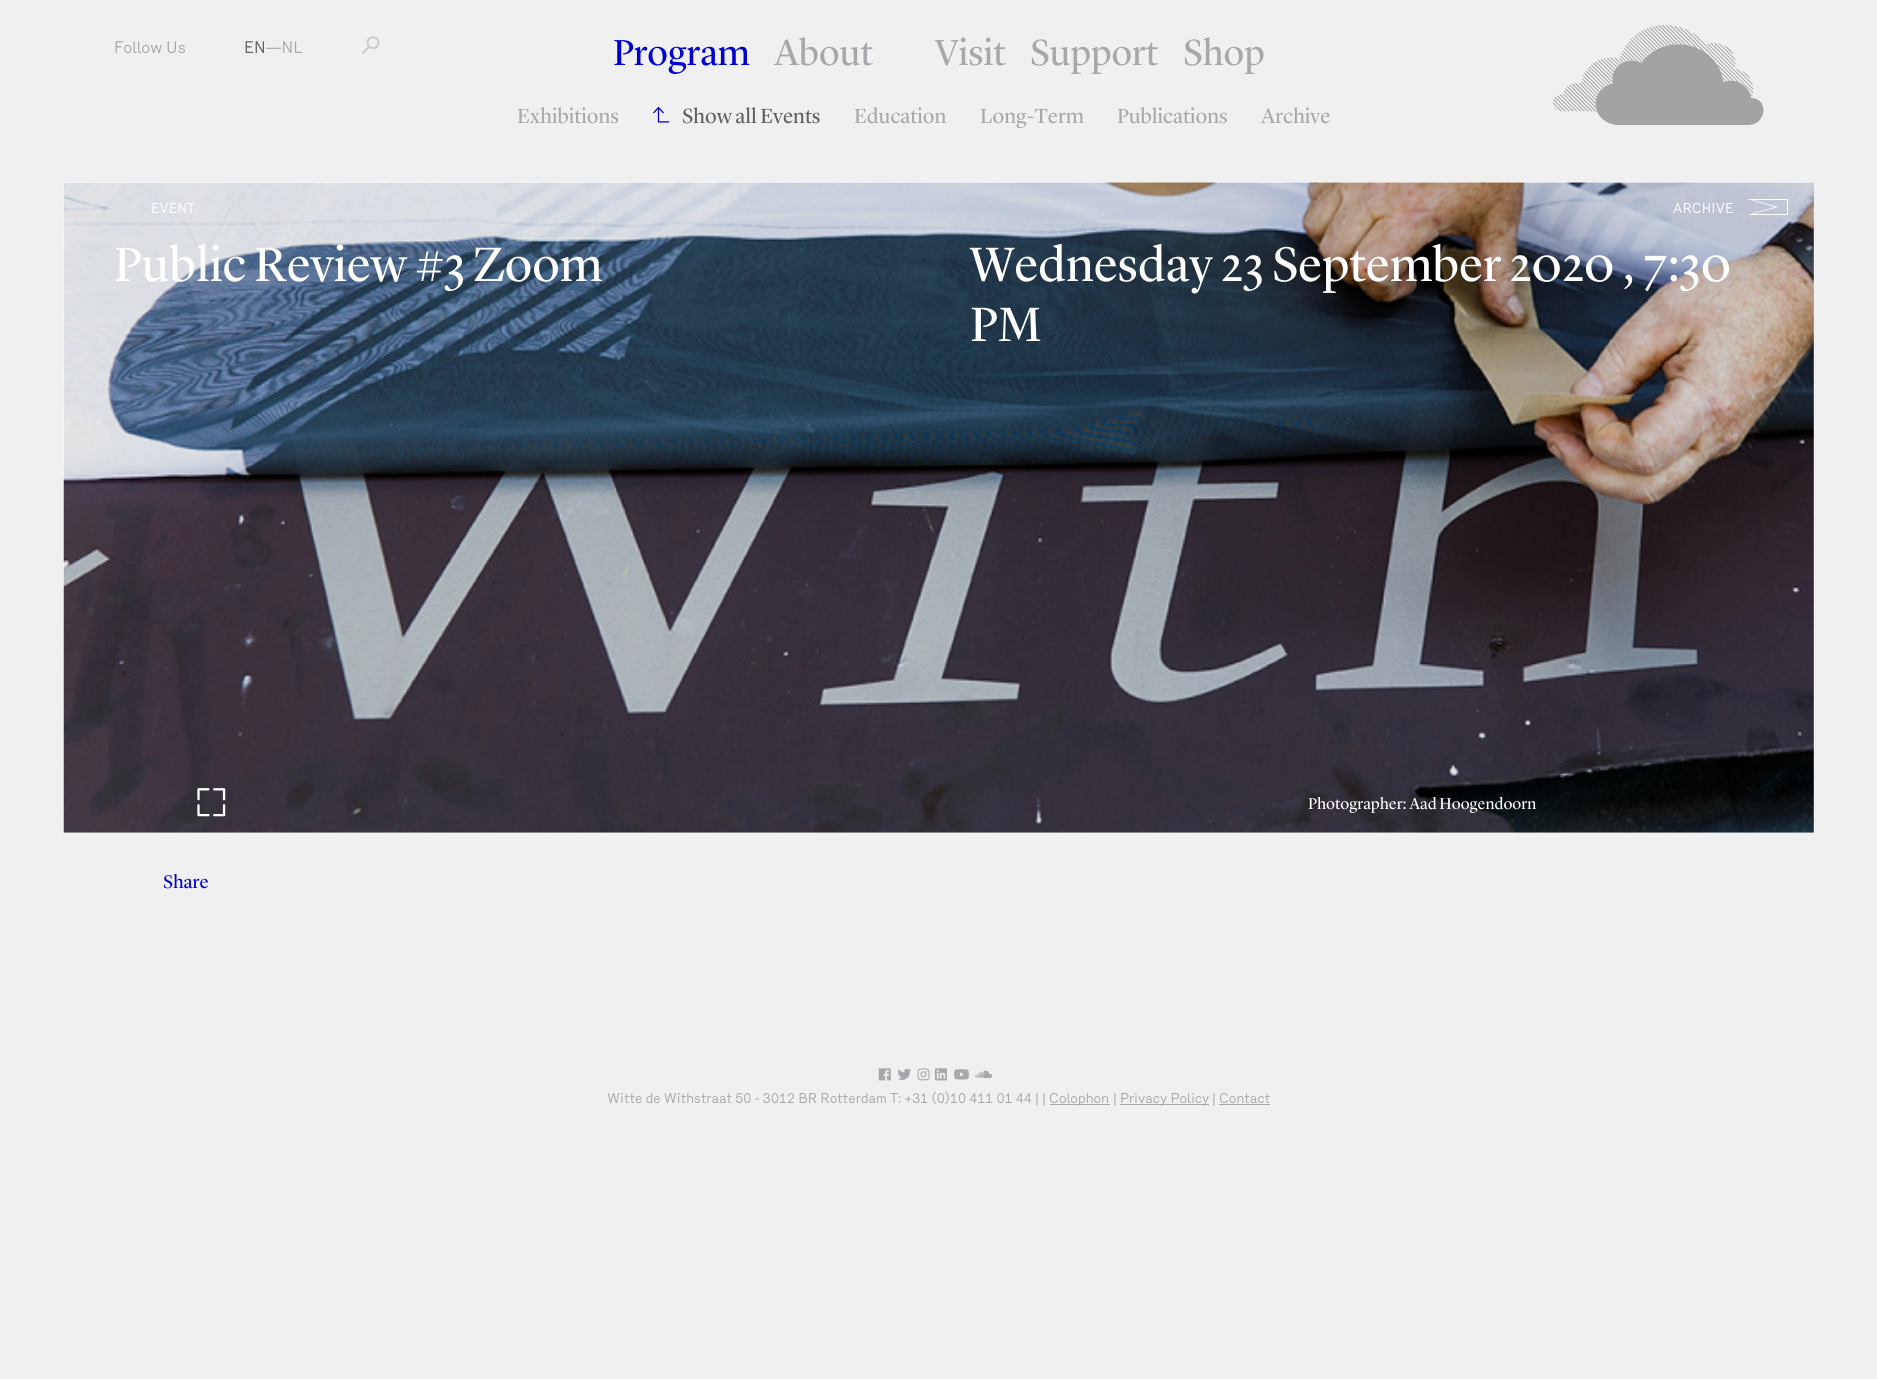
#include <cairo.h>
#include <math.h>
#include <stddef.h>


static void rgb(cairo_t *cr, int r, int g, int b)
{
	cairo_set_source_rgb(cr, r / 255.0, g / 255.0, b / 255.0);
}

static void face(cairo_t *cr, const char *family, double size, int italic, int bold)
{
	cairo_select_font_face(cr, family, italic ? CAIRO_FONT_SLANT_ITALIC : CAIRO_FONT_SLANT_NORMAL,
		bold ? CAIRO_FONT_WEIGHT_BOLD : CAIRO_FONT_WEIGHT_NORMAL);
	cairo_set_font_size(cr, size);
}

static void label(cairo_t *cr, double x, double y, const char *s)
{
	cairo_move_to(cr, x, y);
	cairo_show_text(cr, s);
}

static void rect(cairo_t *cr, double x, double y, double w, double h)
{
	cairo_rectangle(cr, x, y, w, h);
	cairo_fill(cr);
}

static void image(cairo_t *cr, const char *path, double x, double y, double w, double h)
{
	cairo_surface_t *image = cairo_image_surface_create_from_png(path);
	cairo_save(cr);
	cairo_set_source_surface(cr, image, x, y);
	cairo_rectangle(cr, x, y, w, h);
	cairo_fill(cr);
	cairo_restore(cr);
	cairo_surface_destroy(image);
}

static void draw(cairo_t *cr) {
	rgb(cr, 240, 240, 240);
	cairo_paint(cr);
	rgb(cr, 216, 216, 216);
	rect(cr, 64, 183, 1750, 650);
	face(cr, "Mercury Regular", 16.25, 0, 0);
	rgb(cr, 166, 168, 171);
	label(cr, 114, 53, "Follow Us");
	rgb(cr, 95, 95, 100);
	label(cr, 244, 53, "EN");
	rgb(cr, 166, 168, 171);
	label(cr, 266, 53, "—NL");
	image(cr, "image0.png", 362, 36, 18, 18);
	face(cr, "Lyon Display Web", 37.5, 0, 0);
	rgb(cr, 0, 0, 211);
	label(cr, 613, 65, "Program");
	rgb(cr, 166, 168, 171);
	label(cr, 774, 65, "About");
	label(cr, 935, 65, "Visit");
	label(cr, 1030, 65, "Support");
	label(cr, 1183, 65, "Shop");
	image(cr, "image1.png", 1553, 25, 211, 100);
	face(cr, "Lyon Display Web", 21.25, 0, 0);
	label(cr, 517, 123, "Exhibitions");
	image(cr, "image2.png", 653, 106, 17, 17);
	rgb(cr, 95, 95, 100);
	label(cr, 682, 123, "Show all Events");
	rgb(cr, 166, 168, 171);
	label(cr, 854, 123, "Education");
	label(cr, 980, 123, "Long-Term");
	label(cr, 1117, 123, "Publications");
	label(cr, 1261, 123, "Archive");
	image(cr, "image4.png", 63, 182, 1751, 651);
	face(cr, "Mercury Regular", 13.75, 0, 0);
	rgb(cr, 255, 255, 255);
	label(cr, 151, 213, "EVENT");
	label(cr, 1673, 213, "ARCHIVE");
	cairo_new_path(cr);
	cairo_move_to(cr, 1747, 215);
	cairo_line_to(cr, 1788, 215);
	cairo_line_to(cr, 1788, 199);
	cairo_line_to(cr, 1747, 199);
	cairo_line_to(cr, 1775, 207);
	cairo_close_path(cr);
	cairo_move_to(cr, 1787, 214);
	cairo_line_to(cr, 1753, 214);
	cairo_line_to(cr, 1778, 207);
	cairo_line_to(cr, 1753, 200);
	cairo_line_to(cr, 1787, 200);
	cairo_close_path(cr);
	cairo_fill(cr);
	face(cr, "Lyon Display Web", 50, 0, 0);
	label(cr, 114, 281, "Public Review #3 Zoom");
	label(cr, 970, 281, "Wednesday 23 September 2020 , 7:30");
	label(cr, 970, 341, "PM");
	image(cr, "image3.png", 197, 788, 29, 29);
	face(cr, "Lyon Display Web", 16.25, 0, 0);
	label(cr, 1308, 809, "Photographer: Aad Hoogendoorn");
	face(cr, "Lyon Display Web", 19, 0, 0);
	rgb(cr, 0, 0, 211);
	label(cr, 163, 888, "Share");
	image(cr, "image5.png", 878, 1068, 13, 13);
	image(cr, "image6.png", 897, 1068, 14, 12);
	image(cr, "image7.png", 917, 1068, 13, 13);
	image(cr, "image8.png", 935, 1068, 12, 13);
	image(cr, "image9.png", 954, 1069, 15, 11);
	image(cr, "image10.png", 975, 1070, 18, 9);
	face(cr, "Mercury Regular", 13.75, 0, 0);
	rgb(cr, 166, 168, 171);
	label(cr, 607, 1103, "Witte de Withstraat 50 - 3012 BR Rotterdam T: +31 (0)10 411 01 44 | | Colophon");
	label(cr, 1113, 1103, "| Privacy Policy");
	label(cr, 1212, 1103, "| Contact");
	rect(cr, 1050, 1104, 60, 1);
	rect(cr, 1120, 1104, 89, 1);
	rect(cr, 1219, 1104, 51, 1);
}

int main(void) {
	cairo_surface_t *surface = cairo_image_surface_create(CAIRO_FORMAT_RGB24, 1877, 1379);
	cairo_t *cr = cairo_create(surface);
	cairo_font_options_t *options = cairo_font_options_create();
	cairo_font_options_set_hint_metrics(options, CAIRO_HINT_METRICS_OFF);
	cairo_font_options_set_hint_style(options, CAIRO_HINT_STYLE_NONE);
	cairo_set_font_options(cr, options);
	cairo_set_miter_limit(cr, 4);
	draw(cr);
	cairo_surface_write_to_png(surface, "render.png");
	cairo_font_options_destroy(options);
	cairo_destroy(cr);
	cairo_surface_destroy(surface);
	return 0;
}
